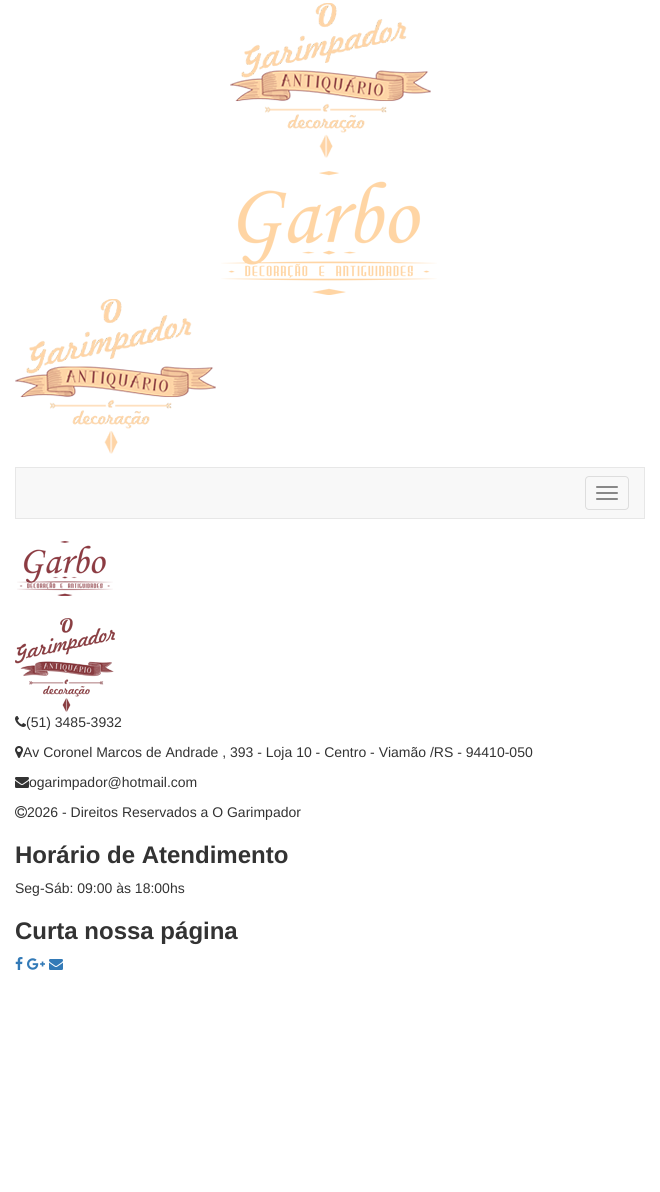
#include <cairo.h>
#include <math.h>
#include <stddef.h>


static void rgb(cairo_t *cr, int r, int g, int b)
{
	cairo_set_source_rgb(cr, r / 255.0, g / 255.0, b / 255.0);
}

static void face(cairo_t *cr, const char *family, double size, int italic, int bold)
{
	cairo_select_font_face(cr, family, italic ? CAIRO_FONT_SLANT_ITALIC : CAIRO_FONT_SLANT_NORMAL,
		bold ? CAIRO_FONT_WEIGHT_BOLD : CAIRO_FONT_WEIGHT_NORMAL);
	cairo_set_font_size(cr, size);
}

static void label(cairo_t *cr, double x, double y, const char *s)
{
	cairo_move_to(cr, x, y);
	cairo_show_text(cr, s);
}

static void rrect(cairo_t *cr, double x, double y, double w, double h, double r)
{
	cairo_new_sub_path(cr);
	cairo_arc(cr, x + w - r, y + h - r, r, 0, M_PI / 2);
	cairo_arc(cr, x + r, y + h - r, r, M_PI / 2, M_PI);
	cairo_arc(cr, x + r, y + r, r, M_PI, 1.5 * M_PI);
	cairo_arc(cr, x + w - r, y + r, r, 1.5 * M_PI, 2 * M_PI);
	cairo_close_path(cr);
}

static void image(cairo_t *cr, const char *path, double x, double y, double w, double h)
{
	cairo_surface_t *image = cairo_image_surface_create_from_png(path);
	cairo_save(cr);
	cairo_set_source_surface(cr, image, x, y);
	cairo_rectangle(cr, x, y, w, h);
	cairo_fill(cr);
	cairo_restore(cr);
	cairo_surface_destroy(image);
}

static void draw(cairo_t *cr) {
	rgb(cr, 255, 255, 255);
	cairo_paint(cr);
	image(cr, "image0.png", 230, 3, 201, 155);
	image(cr, "image1.png", 221, 171, 216, 124);
	image(cr, "image0.png", 15, 299, 201, 155);
	rgb(cr, 248, 248, 248);
	cairo_rectangle(cr, 15.5, 467.5, 629, 51);
	cairo_fill_preserve(cr);
	rgb(cr, 231, 231, 231);
	cairo_set_line_width(cr, 1);
	cairo_stroke(cr);
	rrect(cr, 585.5, 476.5, 43, 33, 3.5);
	rgb(cr, 221, 221, 221);
	cairo_stroke(cr);
	rgb(cr, 136, 136, 136);
	rrect(cr, 596, 486, 22, 2, 1);
	cairo_fill(cr);
	rrect(cr, 596, 492, 22, 2, 1);
	cairo_fill(cr);
	rrect(cr, 596, 498, 22, 2, 1);
	cairo_fill(cr);
	image(cr, "image2.png", 17, 541, 96, 55);
	image(cr, "image3.png", 15, 618, 100, 94);
	image(cr, "image4.png", 15, 716, 11, 11);
	face(cr, "Liberation Sans", 14, 0, 0);
	rgb(cr, 51, 51, 51);
	label(cr, 26, 727, "(51) 3485-3932");
	image(cr, "image5.png", 15, 746, 8, 12);
	label(cr, 23, 757, "Av Coronel Marcos de Andrade , 393 - Loja 10 - Centro - Viamão /RS - 94410-050");
	image(cr, "image6.png", 15, 777, 14, 11);
	label(cr, 29, 787, "ogarimpador@hotmail.com");
	image(cr, "image7.png", 15, 806, 12, 12);
	label(cr, 27, 817, "2026 - Direitos Reservados a O Garimpador");
	face(cr, "Liberation Sans", 24, 0, 1);
	label(cr, 15, 863, "Horário de Atendimento");
	face(cr, "Liberation Sans", 14, 0, 0);
	label(cr, 15, 893, "Seg-Sáb: 09:00 às 18:00hs");
	face(cr, "Liberation Sans", 24, 0, 1);
	label(cr, 15, 939, "Curta nossa página");
	image(cr, "image8.png", 15, 957, 8, 13);
	image(cr, "image9.png", 27, 958, 18, 12);
	image(cr, "image10.png", 49, 959, 14, 11);
}

int main(void) {
	cairo_surface_t *surface = cairo_image_surface_create(CAIRO_FORMAT_RGB24, 660, 1192);
	cairo_t *cr = cairo_create(surface);
	cairo_font_options_t *options = cairo_font_options_create();
	cairo_font_options_set_hint_metrics(options, CAIRO_HINT_METRICS_OFF);
	cairo_font_options_set_hint_style(options, CAIRO_HINT_STYLE_NONE);
	cairo_set_font_options(cr, options);
	cairo_set_miter_limit(cr, 4);
	draw(cr);
	cairo_surface_write_to_png(surface, "render.png");
	cairo_font_options_destroy(options);
	cairo_destroy(cr);
	cairo_surface_destroy(surface);
	return 0;
}
